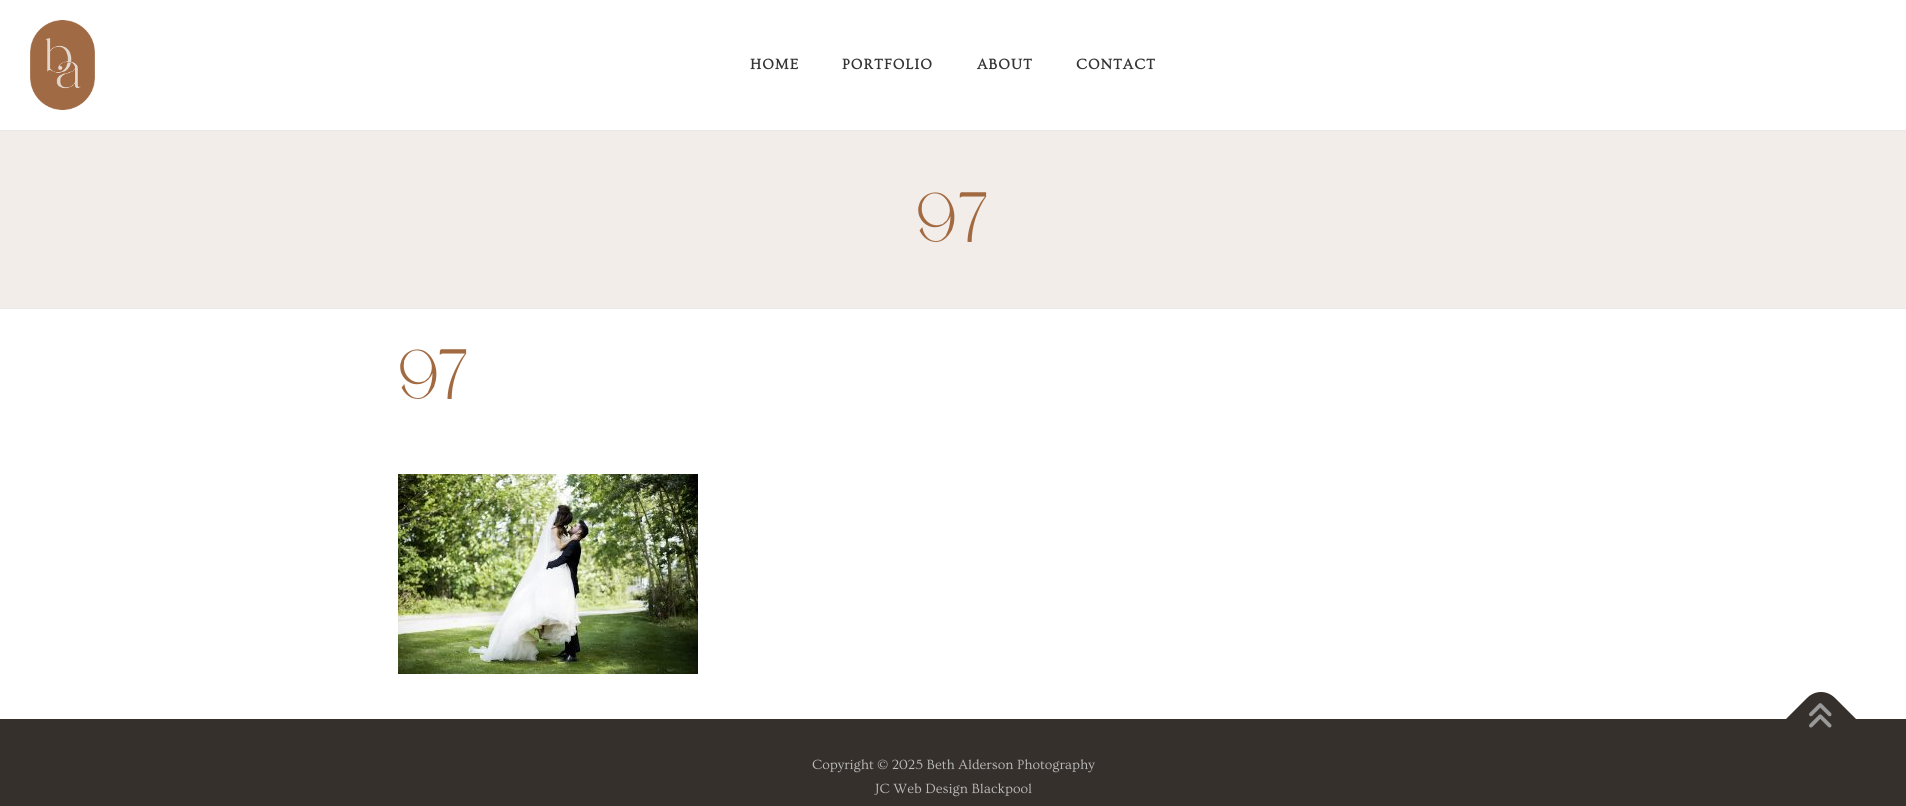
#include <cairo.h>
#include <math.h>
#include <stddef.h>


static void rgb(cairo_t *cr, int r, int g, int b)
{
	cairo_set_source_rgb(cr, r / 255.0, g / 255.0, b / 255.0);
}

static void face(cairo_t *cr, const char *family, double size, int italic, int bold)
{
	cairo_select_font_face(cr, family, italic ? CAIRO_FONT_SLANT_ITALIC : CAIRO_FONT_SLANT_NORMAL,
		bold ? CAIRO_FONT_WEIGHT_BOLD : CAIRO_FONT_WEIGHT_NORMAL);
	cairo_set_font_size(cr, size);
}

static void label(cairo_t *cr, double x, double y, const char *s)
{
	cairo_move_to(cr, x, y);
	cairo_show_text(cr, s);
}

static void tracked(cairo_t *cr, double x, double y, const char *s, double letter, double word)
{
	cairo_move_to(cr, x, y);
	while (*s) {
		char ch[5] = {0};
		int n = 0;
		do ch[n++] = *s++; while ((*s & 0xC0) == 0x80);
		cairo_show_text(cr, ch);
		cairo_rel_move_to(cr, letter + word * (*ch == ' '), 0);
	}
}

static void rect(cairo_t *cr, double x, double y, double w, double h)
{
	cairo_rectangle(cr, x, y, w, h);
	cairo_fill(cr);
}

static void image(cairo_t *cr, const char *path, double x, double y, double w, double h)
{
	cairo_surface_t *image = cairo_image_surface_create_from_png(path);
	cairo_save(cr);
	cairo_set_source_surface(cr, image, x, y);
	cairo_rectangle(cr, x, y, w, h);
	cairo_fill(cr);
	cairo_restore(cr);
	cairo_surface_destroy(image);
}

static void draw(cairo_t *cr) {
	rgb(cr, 255, 255, 255);
	cairo_paint(cr);
	image(cr, "image0.png", 30, 20, 65, 90);
	face(cr, "Ovo", 15, 0, 1);
	rgb(cr, 51, 51, 51);
	tracked(cr, 750, 69, "HOME", 1, 0);
	tracked(cr, 842, 69, "PORTFOLIO", 1, 0);
	tracked(cr, 977, 69, "ABOUT", 1, 0);
	tracked(cr, 1076, 69, "CONTACT", 1, 0);
	rgb(cr, 233, 233, 233);
	rect(cr, 0, 130, 1906, 1);
	rect(cr, 0, 308, 1906, 1);
	rgb(cr, 242, 237, 233);
	rect(cr, 0, 131, 1906, 177);
	face(cr, "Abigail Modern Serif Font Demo", 90, 0, 0);
	rgb(cr, 162, 106, 65);
	tracked(cr, 916, 242, "97", 1, 0);
	tracked(cr, 398, 399, "97", -1, 0);
	image(cr, "image1.png", 398, 474, 300, 200);
	rgb(cr, 53, 48, 44);
	rect(cr, 0, 719, 1906, 87);
	cairo_new_path(cr);
	cairo_move_to(cr, 1786, 719);
	cairo_line_to(cr, 1807, 698);
	cairo_curve_to(cr, 1815, 690, 1827, 690, 1835, 698);
	cairo_line_to(cr, 1856, 719);
	cairo_line_to(cr, 1821, 754);
	cairo_close_path(cr);
	cairo_fill(cr);
	image(cr, "image2.png", 1809, 703, 23, 25);
	face(cr, "Ovo", 14, 0, 0);
	rgb(cr, 187, 187, 187);
	label(cr, 812, 769, "Copyright © 2025 Beth Alderson Photography");
	label(cr, 875, 793, "JC Web Design Blackpool");
}

int main(void) {
	cairo_surface_t *surface = cairo_image_surface_create(CAIRO_FORMAT_RGB24, 1906, 806);
	cairo_t *cr = cairo_create(surface);
	cairo_font_options_t *options = cairo_font_options_create();
	cairo_font_options_set_hint_metrics(options, CAIRO_HINT_METRICS_OFF);
	cairo_font_options_set_hint_style(options, CAIRO_HINT_STYLE_NONE);
	cairo_set_font_options(cr, options);
	cairo_set_miter_limit(cr, 4);
	draw(cr);
	cairo_surface_write_to_png(surface, "render.png");
	cairo_font_options_destroy(options);
	cairo_destroy(cr);
	cairo_surface_destroy(surface);
	return 0;
}
